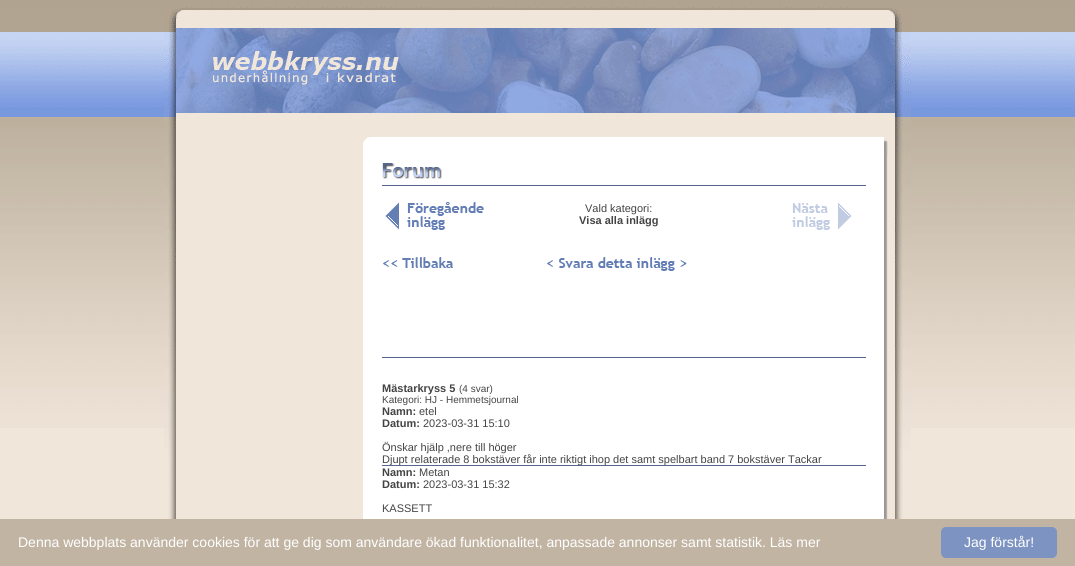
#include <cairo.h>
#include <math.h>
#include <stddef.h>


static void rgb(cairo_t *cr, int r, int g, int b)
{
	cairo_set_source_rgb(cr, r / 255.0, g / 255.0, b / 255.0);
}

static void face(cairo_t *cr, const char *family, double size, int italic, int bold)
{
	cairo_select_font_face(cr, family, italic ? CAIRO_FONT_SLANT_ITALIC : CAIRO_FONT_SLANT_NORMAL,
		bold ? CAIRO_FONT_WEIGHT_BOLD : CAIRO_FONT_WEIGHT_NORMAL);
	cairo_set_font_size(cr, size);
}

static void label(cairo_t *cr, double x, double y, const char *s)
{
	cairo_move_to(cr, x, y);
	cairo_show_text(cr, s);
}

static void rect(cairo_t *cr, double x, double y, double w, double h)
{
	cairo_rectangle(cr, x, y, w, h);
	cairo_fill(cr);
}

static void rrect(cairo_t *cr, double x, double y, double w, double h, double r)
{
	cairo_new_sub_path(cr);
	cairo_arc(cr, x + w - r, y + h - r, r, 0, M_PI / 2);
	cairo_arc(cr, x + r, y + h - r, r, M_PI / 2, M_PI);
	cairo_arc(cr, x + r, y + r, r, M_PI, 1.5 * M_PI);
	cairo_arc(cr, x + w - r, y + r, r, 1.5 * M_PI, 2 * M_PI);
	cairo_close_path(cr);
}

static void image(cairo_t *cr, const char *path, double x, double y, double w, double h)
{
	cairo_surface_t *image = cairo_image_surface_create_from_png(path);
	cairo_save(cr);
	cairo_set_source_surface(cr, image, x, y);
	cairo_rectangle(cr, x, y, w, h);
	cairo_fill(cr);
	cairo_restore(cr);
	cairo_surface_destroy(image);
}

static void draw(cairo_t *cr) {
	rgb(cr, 241, 230, 218);
	cairo_paint(cr);
	image(cr, "image0.png", 0, 0, 1075, 428);
	image(cr, "image1.png", 164, 7, 747, 110);
	image(cr, "image2.png", 164, 449, 747, 70);
	image(cr, "image3.png", 164, 117, 747, 332);
	image(cr, "image4.png", 363, 137, 525, 18);
	image(cr, "image5.png", 363, 155, 525, 364);
	image(cr, "image6.png", 382, 163, 60, 16);
	rgb(cr, 86, 103, 141);
	rect(cr, 382, 185, 484, 1);
	image(cr, "image7.png", 385, 202, 99, 28);
	face(cr, "Liberation Sans", 11, 0, 0);
	rgb(cr, 68, 68, 68);
	label(cr, 585, 212, "Vald kategori:");
	face(cr, "Liberation Sans", 11, 0, 1);
	label(cr, 579, 224, "Visa alla inlägg");
	image(cr, "image8.png", 792, 202, 60, 28);
	image(cr, "image9.png", 383, 257, 70, 11);
	image(cr, "image10.png", 547, 257, 140, 14);
	rgb(cr, 86, 103, 141);
	rect(cr, 382, 357, 484, 1);
	rgb(cr, 68, 68, 68);
	label(cr, 382, 392, "Mästarkryss 5");
	face(cr, "Liberation Sans", 10, 0, 0);
	label(cr, 459, 392, "(4 svar)");
	label(cr, 382, 403, "Kategori: HJ - Hemmetsjournal");
	face(cr, "Liberation Sans", 11, 0, 1);
	label(cr, 382, 415, "Namn:");
	face(cr, "Liberation Sans", 11, 0, 0);
	label(cr, 419, 415, "etel");
	face(cr, "Liberation Sans", 11, 0, 1);
	label(cr, 382, 427, "Datum:");
	face(cr, "Liberation Sans", 11, 0, 0);
	label(cr, 423, 427, "2023-03-31 15:10");
	label(cr, 382, 451, "Önskar hjälp ,nere till höger");
	label(cr, 382, 463, "Djupt relaterade 8 bokstäver får inte riktigt ihop det samt spelbart band 7 bokstäver Tackar");
	rgb(cr, 86, 103, 141);
	rect(cr, 382, 465, 484, 1);
	face(cr, "Liberation Sans", 11, 0, 1);
	rgb(cr, 68, 68, 68);
	label(cr, 382, 476, "Namn:");
	face(cr, "Liberation Sans", 11, 0, 0);
	label(cr, 419, 476, "Metan");
	face(cr, "Liberation Sans", 11, 0, 1);
	label(cr, 382, 488, "Datum:");
	face(cr, "Liberation Sans", 11, 0, 0);
	label(cr, 423, 488, "2023-03-31 15:32");
	label(cr, 382, 512, "KASSETT");
	rgb(cr, 193, 180, 163);
	rect(cr, 0, 519, 1075, 47);
	face(cr, "Liberation Sans", 14, 0, 0);
	rgb(cr, 255, 255, 255);
	label(cr, 18, 547, "Denna webbplats använder cookies för att ge dig som användare ökad funktionalitet, anpassade annonser samt statistik. Läs mer");
	rgb(cr, 125, 147, 193);
	rrect(cr, 941, 527, 116, 31, 5);
	cairo_fill(cr);
	rgb(cr, 255, 255, 255);
	label(cr, 964, 547, "Jag förstår!");
}

int main(void) {
	cairo_surface_t *surface = cairo_image_surface_create(CAIRO_FORMAT_RGB24, 1075, 566);
	cairo_t *cr = cairo_create(surface);
	cairo_font_options_t *options = cairo_font_options_create();
	cairo_font_options_set_hint_metrics(options, CAIRO_HINT_METRICS_OFF);
	cairo_font_options_set_hint_style(options, CAIRO_HINT_STYLE_NONE);
	cairo_set_font_options(cr, options);
	cairo_set_miter_limit(cr, 4);
	draw(cr);
	cairo_surface_write_to_png(surface, "render.png");
	cairo_font_options_destroy(options);
	cairo_destroy(cr);
	cairo_surface_destroy(surface);
	return 0;
}
